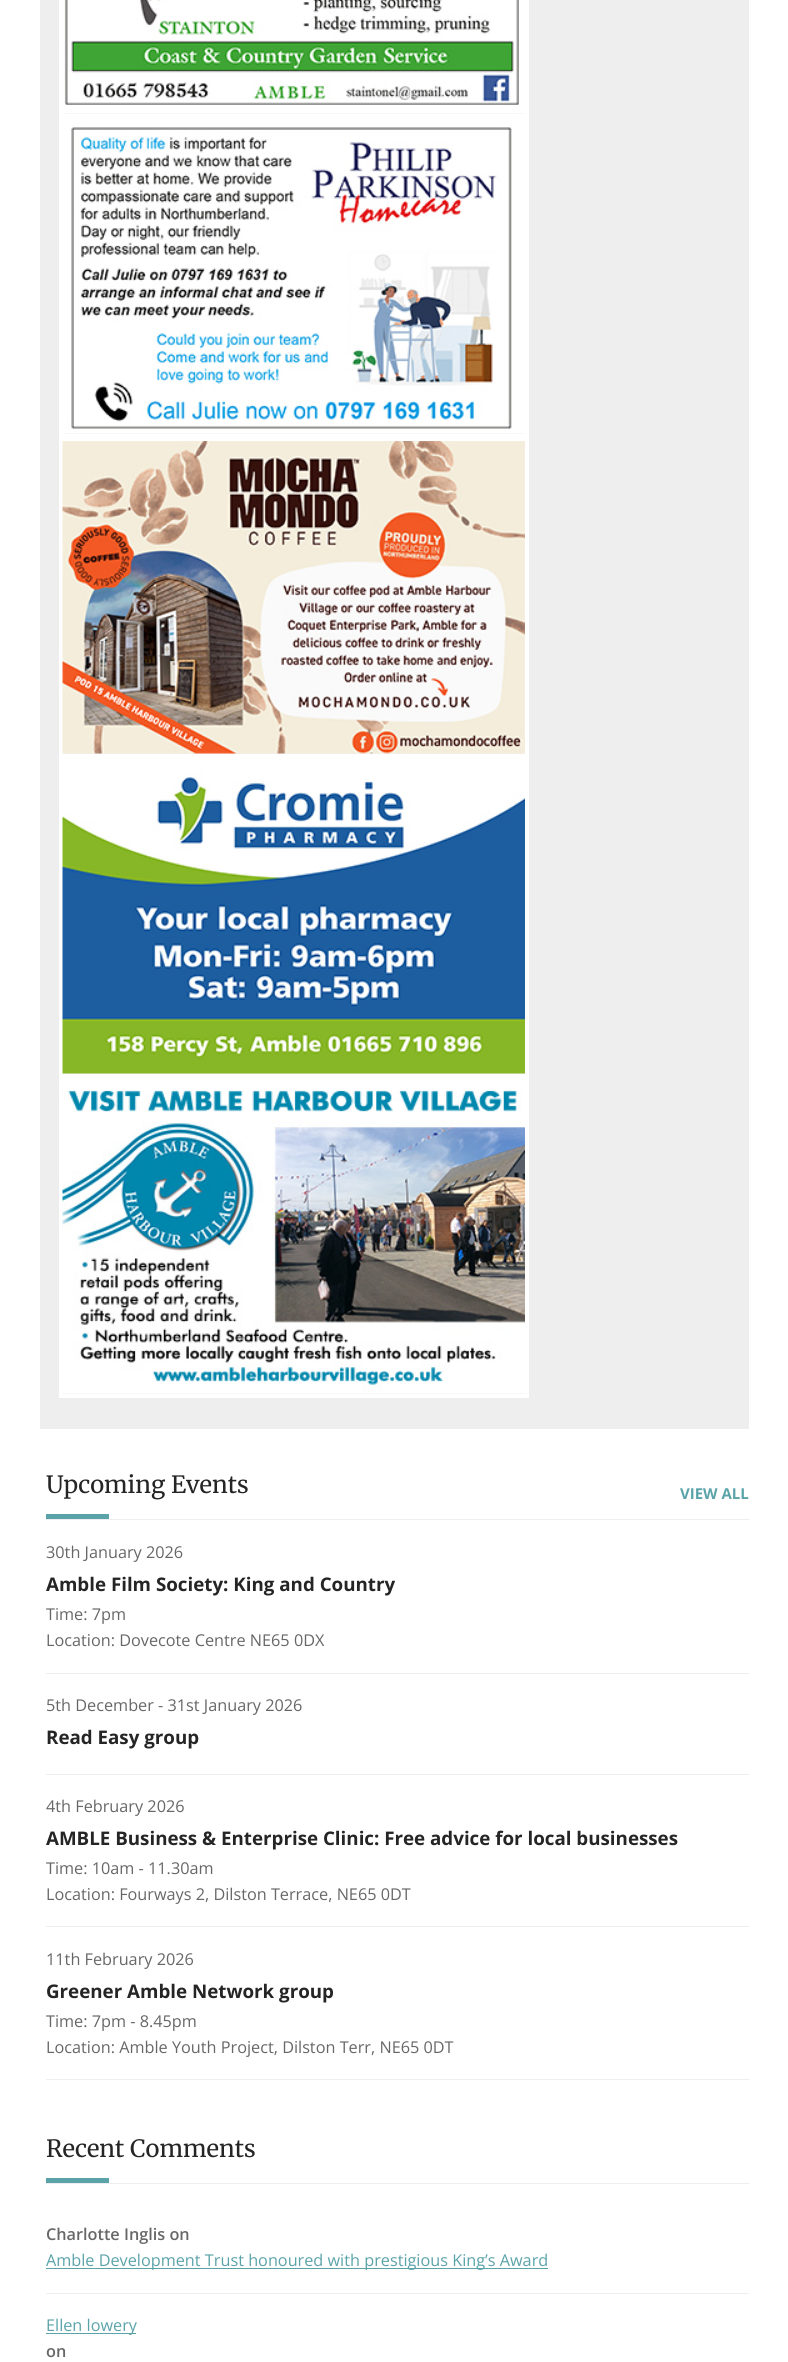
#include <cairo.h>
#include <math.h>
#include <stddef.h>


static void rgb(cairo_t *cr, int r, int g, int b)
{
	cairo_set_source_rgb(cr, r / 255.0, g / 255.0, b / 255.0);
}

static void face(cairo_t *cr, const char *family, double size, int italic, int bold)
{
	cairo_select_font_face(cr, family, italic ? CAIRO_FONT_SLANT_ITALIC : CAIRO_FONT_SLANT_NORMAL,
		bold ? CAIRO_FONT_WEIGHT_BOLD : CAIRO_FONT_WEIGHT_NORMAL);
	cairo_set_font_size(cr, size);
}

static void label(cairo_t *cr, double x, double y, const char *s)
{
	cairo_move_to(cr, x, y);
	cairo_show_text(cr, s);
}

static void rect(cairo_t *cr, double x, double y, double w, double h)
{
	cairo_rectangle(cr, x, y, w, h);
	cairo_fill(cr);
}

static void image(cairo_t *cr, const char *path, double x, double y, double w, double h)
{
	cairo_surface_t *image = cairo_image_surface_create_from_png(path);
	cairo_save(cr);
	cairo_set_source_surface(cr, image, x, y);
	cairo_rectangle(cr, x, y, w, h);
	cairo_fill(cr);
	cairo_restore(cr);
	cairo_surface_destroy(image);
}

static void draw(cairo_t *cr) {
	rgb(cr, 255, 255, 255);
	cairo_paint(cr);
	rgb(cr, 238, 238, 238);
	rect(cr, 40, 0, 709, 1429);
	cairo_rectangle(cr, 61, -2, 466, 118);
	rgb(cr, 255, 255, 255);
	cairo_set_line_width(cr, 4);
	cairo_stroke(cr);
	image(cr, "image0.png", 63, 0, 462, 114);
	cairo_rectangle(cr, 61, 120, 466, 316);
	cairo_stroke(cr);
	image(cr, "image1.png", 63, 122, 462, 312);
	cairo_rectangle(cr, 61, 440, 466, 316);
	cairo_stroke(cr);
	image(cr, "image2.png", 62, 441, 463, 313);
	cairo_rectangle(cr, 61, 760, 466, 316);
	cairo_stroke(cr);
	image(cr, "image3.png", 62, 762, 463, 312);
	cairo_rectangle(cr, 61, 1080, 466, 316);
	cairo_stroke(cr);
	image(cr, "image4.png", 62, 1082, 463, 312);
	rgb(cr, 238, 238, 238);
	rect(cr, 46, 1519, 703, 1);
	face(cr, "Merriweather Light", 23.75, 0, 0);
	rgb(cr, 37, 37, 37);
	label(cr, 46, 1493, "Upcoming Events");
	rgb(cr, 90, 163, 169);
	rect(cr, 46, 1514, 63, 5);
	face(cr, "Open Sans", 15, 0, 1);
	label(cr, 680, 1499, "VIEW ALL");
	rgb(cr, 238, 238, 238);
	rect(cr, 46, 1673, 703, 1);
	face(cr, "Open Sans", 16.25, 0, 0);
	rgb(cr, 103, 103, 103);
	label(cr, 46, 1558, "30th January 2026");
	face(cr, "Open Sans", 18.75, 0, 1);
	rgb(cr, 37, 37, 37);
	label(cr, 46, 1591, "Amble Film Society: King and Country");
	face(cr, "Open Sans", 16.25, 0, 0);
	rgb(cr, 103, 103, 103);
	label(cr, 46, 1620, "Time: 7pm");
	label(cr, 46, 1646, "Location: Dovecote Centre NE65 0DX");
	rgb(cr, 238, 238, 238);
	rect(cr, 46, 1774, 703, 1);
	rgb(cr, 103, 103, 103);
	label(cr, 46, 1711, "5th December - 31st January 2026");
	face(cr, "Open Sans", 18.75, 0, 1);
	rgb(cr, 37, 37, 37);
	label(cr, 46, 1744, "Read Easy group");
	rgb(cr, 238, 238, 238);
	rect(cr, 46, 1926, 703, 1);
	face(cr, "Open Sans", 16.25, 0, 0);
	rgb(cr, 103, 103, 103);
	label(cr, 46, 1812, "4th February 2026");
	face(cr, "Open Sans", 18.75, 0, 1);
	rgb(cr, 37, 37, 37);
	label(cr, 46, 1845, "AMBLE Business & Enterprise Clinic: Free advice for local businesses");
	face(cr, "Open Sans", 16.25, 0, 0);
	rgb(cr, 103, 103, 103);
	label(cr, 46, 1874, "Time: 10am - 11.30am");
	label(cr, 46, 1900, "Location: Fourways 2, Dilston Terrace, NE65 0DT");
	rgb(cr, 238, 238, 238);
	rect(cr, 46, 2079, 703, 1);
	rgb(cr, 103, 103, 103);
	label(cr, 46, 1965, "11th February 2026");
	face(cr, "Open Sans", 18.75, 0, 1);
	rgb(cr, 37, 37, 37);
	label(cr, 46, 1998, "Greener Amble Network group");
	face(cr, "Open Sans", 16.25, 0, 0);
	rgb(cr, 103, 103, 103);
	label(cr, 46, 2027, "Time: 7pm - 8.45pm");
	label(cr, 46, 2053, "Location: Amble Youth Project, Dilston Terr, NE65 0DT");
	rgb(cr, 238, 238, 238);
	rect(cr, 46, 2183, 703, 1);
	face(cr, "Merriweather Light", 23.75, 0, 0);
	rgb(cr, 37, 37, 37);
	label(cr, 46, 2157, "Recent Comments");
	rgb(cr, 90, 163, 169);
	rect(cr, 46, 2178, 63, 5);
	rgb(cr, 238, 238, 238);
	rect(cr, 46, 2293, 703, 1);
	face(cr, "Open Sans SemiBold", 16.25, 0, 0);
	rgb(cr, 103, 103, 103);
	label(cr, 46, 2240, "Charlotte Inglis on");
	rgb(cr, 90, 163, 169);
	rect(cr, 46, 2268, 502, 1);
	face(cr, "Open Sans", 16.25, 0, 0);
	label(cr, 46, 2266, "Amble Development Trust honoured with prestigious King’s Award");
	rect(cr, 46, 2333, 90, 1);
	label(cr, 46, 2331, "Ellen lowery");
	face(cr, "Open Sans SemiBold", 16.25, 0, 0);
	rgb(cr, 103, 103, 103);
	label(cr, 46, 2357, "on");
}

int main(void) {
	cairo_surface_t *surface = cairo_image_surface_create(CAIRO_FORMAT_RGB24, 788, 2362);
	cairo_t *cr = cairo_create(surface);
	cairo_font_options_t *options = cairo_font_options_create();
	cairo_font_options_set_hint_metrics(options, CAIRO_HINT_METRICS_OFF);
	cairo_font_options_set_hint_style(options, CAIRO_HINT_STYLE_NONE);
	cairo_set_font_options(cr, options);
	cairo_set_miter_limit(cr, 4);
	draw(cr);
	cairo_surface_write_to_png(surface, "render.png");
	cairo_font_options_destroy(options);
	cairo_destroy(cr);
	cairo_surface_destroy(surface);
	return 0;
}
